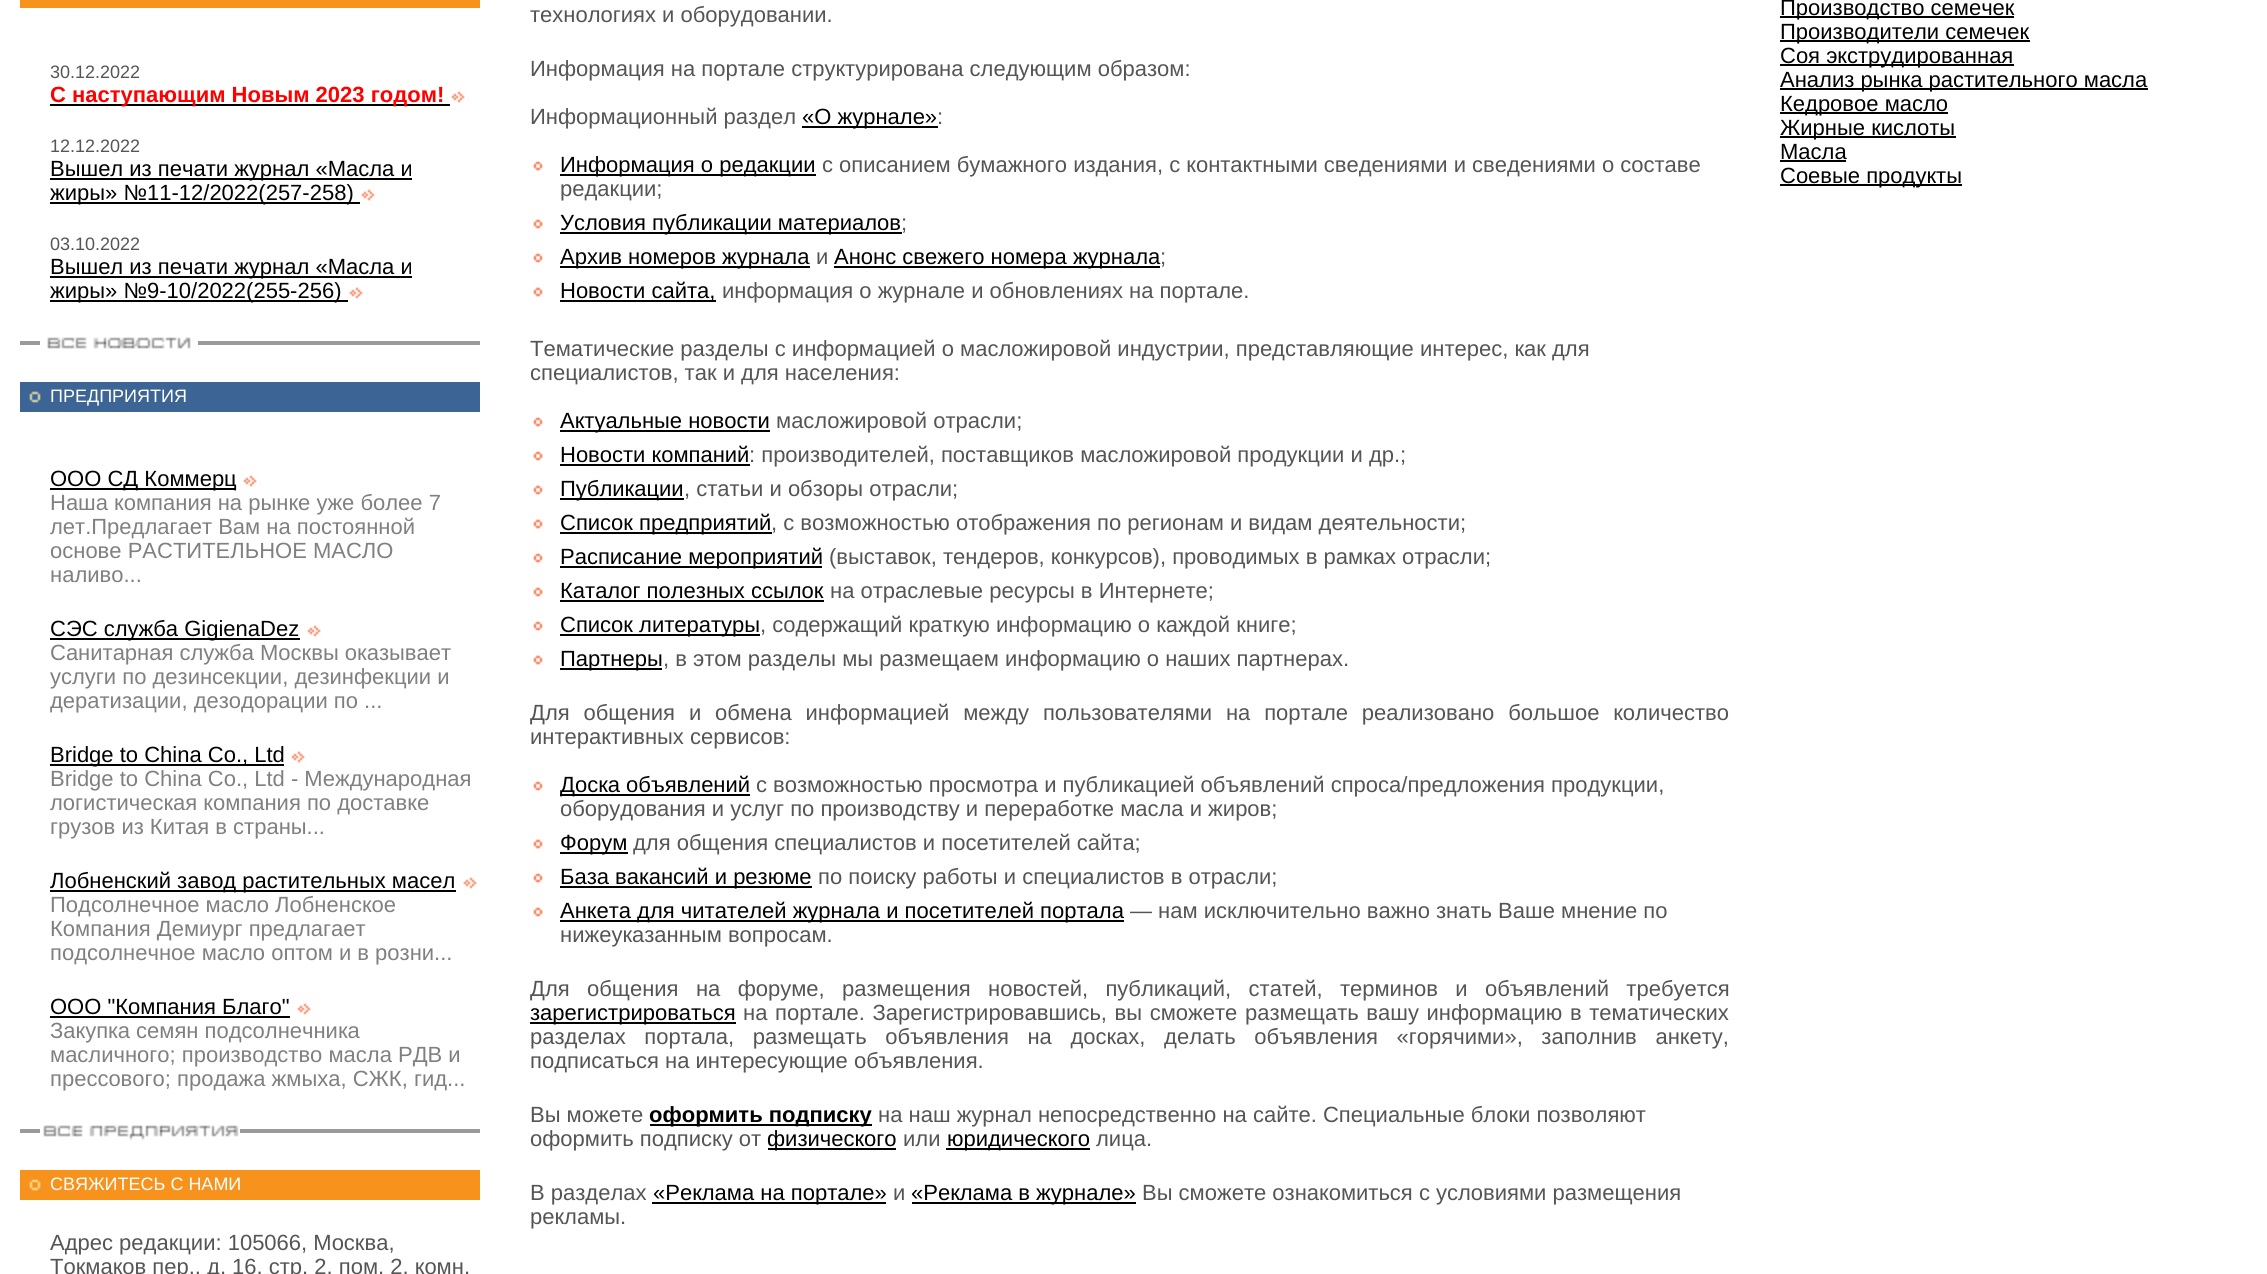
#include <cairo.h>
#include <math.h>
#include <stddef.h>


static void rgb(cairo_t *cr, int r, int g, int b)
{
	cairo_set_source_rgb(cr, r / 255.0, g / 255.0, b / 255.0);
}

static void face(cairo_t *cr, const char *family, double size, int italic, int bold)
{
	cairo_select_font_face(cr, family, italic ? CAIRO_FONT_SLANT_ITALIC : CAIRO_FONT_SLANT_NORMAL,
		bold ? CAIRO_FONT_WEIGHT_BOLD : CAIRO_FONT_WEIGHT_NORMAL);
	cairo_set_font_size(cr, size);
}

static void label(cairo_t *cr, double x, double y, const char *s)
{
	cairo_move_to(cr, x, y);
	cairo_show_text(cr, s);
}

static void tracked(cairo_t *cr, double x, double y, const char *s, double letter, double word)
{
	cairo_move_to(cr, x, y);
	while (*s) {
		char ch[5] = {0};
		int n = 0;
		do ch[n++] = *s++; while ((*s & 0xC0) == 0x80);
		cairo_show_text(cr, ch);
		cairo_rel_move_to(cr, letter + word * (*ch == ' '), 0);
	}
}

static void rect(cairo_t *cr, double x, double y, double w, double h)
{
	cairo_rectangle(cr, x, y, w, h);
	cairo_fill(cr);
}

static void image(cairo_t *cr, const char *path, double x, double y, double w, double h)
{
	cairo_surface_t *image = cairo_image_surface_create_from_png(path);
	cairo_save(cr);
	cairo_set_source_surface(cr, image, x, y);
	cairo_rectangle(cr, x, y, w, h);
	cairo_fill(cr);
	cairo_restore(cr);
	cairo_surface_destroy(image);
}

static void draw(cairo_t *cr) {
	rgb(cr, 255, 255, 255);
	cairo_paint(cr);
	rgb(cr, 247, 147, 29);
	rect(cr, 20, 0, 460, 8);
	face(cr, "Liberation Sans", 18, 0, 0);
	rgb(cr, 85, 85, 85);
	label(cr, 50, 78, "30.12.2022");
	rgb(cr, 0, 0, 0);
	rect(cr, 50, 104, 400, 2);
	face(cr, "Liberation Sans", 22, 0, 1);
	rgb(cr, 255, 0, 0);
	label(cr, 50, 102, "С наступающим Новым 2023 годом!");
	image(cr, "image0.png", 451, 91, 14, 12);
	face(cr, "Liberation Sans", 18, 0, 0);
	rgb(cr, 85, 85, 85);
	label(cr, 50, 152, "12.12.2022");
	rgb(cr, 0, 0, 0);
	rect(cr, 50, 178, 362, 2);
	face(cr, "Liberation Sans", 22, 0, 0);
	label(cr, 50, 176, "Вышел из печати журнал «Масла и");
	rect(cr, 50, 202, 310, 2);
	label(cr, 50, 200, "жиры» №11-12/2022(257-258)");
	image(cr, "image0.png", 361, 189, 14, 12);
	face(cr, "Liberation Sans", 18, 0, 0);
	rgb(cr, 85, 85, 85);
	label(cr, 50, 250, "03.10.2022");
	rgb(cr, 0, 0, 0);
	rect(cr, 50, 276, 362, 2);
	face(cr, "Liberation Sans", 22, 0, 0);
	label(cr, 50, 274, "Вышел из печати журнал «Масла и");
	rect(cr, 50, 300, 298, 2);
	label(cr, 50, 298, "жиры» №9-10/2022(255-256)");
	image(cr, "image0.png", 349, 287, 14, 12);
	rgb(cr, 154, 154, 154);
	rect(cr, 20, 341, 460, 4);
	rgb(cr, 255, 255, 255);
	rect(cr, 40, 341, 158, 4);
	image(cr, "image1.png", 47, 337, 144, 12);
	rgb(cr, 60, 100, 148);
	rect(cr, 20, 382, 460, 30);
	image(cr, "image2.png", 29, 391, 12, 12);
	face(cr, "Liberation Sans", 18, 0, 0);
	rgb(cr, 255, 255, 255);
	label(cr, 50, 402, "ПРЕДПРИЯТИЯ");
	rgb(cr, 0, 0, 0);
	rect(cr, 50, 488, 186, 2);
	face(cr, "Liberation Sans", 22, 0, 0);
	label(cr, 50, 486, "ООО СД Коммерц");
	image(cr, "image0.png", 243, 475, 14, 12);
	rgb(cr, 128, 128, 128);
	label(cr, 50, 510, "Наша компания на рынке уже более 7");
	label(cr, 50, 534, "лет.Предлагает Вам на постоянной");
	label(cr, 50, 558, "основе РАСТИТЕЛЬНОЕ МАСЛО");
	label(cr, 50, 582, "наливо...");
	rgb(cr, 0, 0, 0);
	rect(cr, 50, 638, 250, 2);
	label(cr, 50, 636, "СЭС служба GigienaDez");
	image(cr, "image0.png", 307, 625, 14, 12);
	rgb(cr, 128, 128, 128);
	label(cr, 50, 660, "Санитарная служба Москвы оказывает");
	label(cr, 50, 684, "услуги по дезинсекции, дезинфекции и");
	label(cr, 50, 708, "дератизации, дезодорации по ...");
	rgb(cr, 0, 0, 0);
	rect(cr, 50, 764, 234, 2);
	label(cr, 50, 762, "Bridge to China Co., Ltd");
	image(cr, "image0.png", 291, 751, 14, 12);
	rgb(cr, 128, 128, 128);
	label(cr, 50, 786, "Bridge to China Co., Ltd - Международная");
	label(cr, 50, 810, "логистическая компания по доставке");
	label(cr, 50, 834, "грузов из Китая в страны...");
	rgb(cr, 0, 0, 0);
	rect(cr, 50, 890, 406, 2);
	label(cr, 50, 888, "Лобненский завод растительных масел");
	image(cr, "image0.png", 463, 877, 14, 12);
	rgb(cr, 128, 128, 128);
	label(cr, 50, 912, "Подсолнечное масло Лобненское");
	label(cr, 50, 936, "Компания Демиург предлагает");
	label(cr, 50, 960, "подсолнечное масло оптом и в розни...");
	rgb(cr, 0, 0, 0);
	label(cr, 50, 1014, "ООО \"Компания Благо\"");
	rect(cr, 50, 1016, 240, 2);
	image(cr, "image0.png", 297, 1003, 14, 12);
	rgb(cr, 128, 128, 128);
	label(cr, 50, 1038, "Закупка семян подсолнечника");
	label(cr, 50, 1062, "масличного; производство масла РДВ и");
	label(cr, 50, 1086, "прессового; продажа жмыха, СЖК, гид...");
	rgb(cr, 154, 154, 154);
	rect(cr, 20, 1129, 460, 4);
	rgb(cr, 255, 255, 255);
	rect(cr, 40, 1129, 200, 4);
	image(cr, "image3.png", 43, 1125, 196, 16);
	rgb(cr, 247, 147, 29);
	rect(cr, 20, 1170, 460, 30);
	image(cr, "image4.png", 29, 1179, 12, 12);
	face(cr, "Liberation Sans", 18, 0, 0);
	rgb(cr, 255, 255, 255);
	label(cr, 50, 1190, "СВЯЖИТЕСЬ С НАМИ");
	face(cr, "Liberation Sans", 22, 0, 0);
	rgb(cr, 85, 85, 85);
	label(cr, 50, 1250, "Адрес редакции: 105066, Москва,");
	label(cr, 50, 1274, "Токмаков пер., д. 16, стр. 2, пом. 2, комн.");
	label(cr, 530, 22, "технологиях и оборудовании.");
	label(cr, 530, 76, "Информация на портале структурирована следующим образом:");
	label(cr, 530, 124, "Информационный раздел");
	rgb(cr, 0, 0, 0);
	rect(cr, 802, 126, 136, 2);
	label(cr, 802, 124, "«О журнале»");
	rgb(cr, 85, 85, 85);
	label(cr, 937, 124, ":");
	image(cr, "image5.png", 533, 161, 10, 10);
	rgb(cr, 0, 0, 0);
	rect(cr, 560, 174, 256, 2);
	label(cr, 560, 172, "Информация о редакции");
	rgb(cr, 85, 85, 85);
	label(cr, 822, 172, "с описанием бумажного издания, с контактными сведениями и сведениями о составе");
	label(cr, 560, 196, "редакции;");
	image(cr, "image5.png", 533, 219, 10, 10);
	rgb(cr, 0, 0, 0);
	rect(cr, 560, 232, 342, 2);
	label(cr, 560, 230, "Условия публикации материалов");
	rgb(cr, 85, 85, 85);
	label(cr, 901, 230, ";");
	image(cr, "image5.png", 533, 253, 10, 10);
	rgb(cr, 0, 0, 0);
	rect(cr, 560, 266, 250, 2);
	label(cr, 560, 264, "Архив номеров журнала");
	rgb(cr, 85, 85, 85);
	label(cr, 816, 264, "и");
	rgb(cr, 0, 0, 0);
	rect(cr, 834, 266, 326, 2);
	label(cr, 834, 264, "Анонс свежего номера журнала");
	rgb(cr, 85, 85, 85);
	label(cr, 1160, 264, ";");
	image(cr, "image5.png", 533, 287, 10, 10);
	rgb(cr, 0, 0, 0);
	rect(cr, 560, 300, 156, 2);
	label(cr, 560, 298, "Новости сайта,");
	rgb(cr, 85, 85, 85);
	label(cr, 722, 298, "информация о журнале и обновлениях на портале.");
	label(cr, 530, 356, "Тематические разделы с информацией о масложировой индустрии, представляющие интерес, как для");
	label(cr, 530, 380, "специалистов, так и для населения:");
	image(cr, "image5.png", 533, 417, 10, 10);
	rgb(cr, 0, 0, 0);
	rect(cr, 560, 430, 210, 2);
	label(cr, 560, 428, "Актуальные новости");
	rgb(cr, 85, 85, 85);
	label(cr, 776, 428, "масложировой отрасли;");
	image(cr, "image5.png", 533, 451, 10, 10);
	rgb(cr, 0, 0, 0);
	label(cr, 560, 462, "Новости компаний");
	rect(cr, 560, 464, 190, 2);
	rgb(cr, 85, 85, 85);
	label(cr, 749, 462, ": производителей, поставщиков масложировой продукции и др.;");
	image(cr, "image5.png", 533, 485, 10, 10);
	rgb(cr, 0, 0, 0);
	rect(cr, 560, 498, 124, 2);
	label(cr, 560, 496, "Публикации");
	rgb(cr, 85, 85, 85);
	label(cr, 684, 496, ", статьи и обзоры отрасли;");
	image(cr, "image5.png", 533, 519, 10, 10);
	rgb(cr, 0, 0, 0);
	rect(cr, 560, 532, 212, 2);
	label(cr, 560, 530, "Список предприятий");
	rgb(cr, 85, 85, 85);
	label(cr, 771, 530, ", с возможностью отображения по регионам и видам деятельности;");
	image(cr, "image5.png", 533, 553, 10, 10);
	rgb(cr, 0, 0, 0);
	rect(cr, 560, 566, 262, 2);
	label(cr, 560, 564, "Расписание мероприятий");
	rgb(cr, 85, 85, 85);
	label(cr, 829, 564, "(выставок, тендеров, конкурсов), проводимых в рамках отрасли;");
	image(cr, "image5.png", 533, 587, 10, 10);
	rgb(cr, 0, 0, 0);
	label(cr, 560, 598, "Каталог полезных ссылок");
	rect(cr, 560, 600, 264, 2);
	rgb(cr, 85, 85, 85);
	label(cr, 830, 598, "на отраслевые ресурсы в Интернете;");
	image(cr, "image5.png", 533, 621, 10, 10);
	rgb(cr, 0, 0, 0);
	rect(cr, 560, 634, 200, 2);
	label(cr, 560, 632, "Список литературы");
	rgb(cr, 85, 85, 85);
	label(cr, 760, 632, ", содержащий краткую информацию о каждой книге;");
	image(cr, "image5.png", 533, 655, 10, 10);
	rgb(cr, 0, 0, 0);
	rect(cr, 560, 668, 102, 2);
	label(cr, 560, 666, "Партнеры");
	rgb(cr, 85, 85, 85);
	label(cr, 663, 666, ", в этом разделы мы размещаем информацию о наших партнерах.");
	tracked(cr, 530, 720, "Для общения и обмена информацией между пользователями на портале реализовано большое количество", 0, 7.75);
	label(cr, 530, 744, "интерактивных сервисов:");
	image(cr, "image5.png", 533, 781, 10, 10);
	rgb(cr, 0, 0, 0);
	rect(cr, 560, 794, 190, 2);
	label(cr, 560, 792, "Доска объявлений");
	rgb(cr, 85, 85, 85);
	label(cr, 756, 792, "с возможностью просмотра и публикацией объявлений спроса/предложения продукции,");
	label(cr, 560, 816, "оборудования и услуг по производству и переработке масла и жиров;");
	image(cr, "image5.png", 533, 839, 10, 10);
	rgb(cr, 0, 0, 0);
	rect(cr, 560, 852, 68, 2);
	label(cr, 560, 850, "Форум");
	rgb(cr, 85, 85, 85);
	label(cr, 633, 850, "для общения специалистов и посетителей сайта;");
	image(cr, "image5.png", 533, 873, 10, 10);
	rgb(cr, 0, 0, 0);
	rect(cr, 560, 886, 252, 2);
	label(cr, 560, 884, "База вакансий и резюме");
	rgb(cr, 85, 85, 85);
	label(cr, 818, 884, "по поиску работы и специалистов в отрасли;");
	image(cr, "image5.png", 533, 907, 10, 10);
	rgb(cr, 0, 0, 0);
	rect(cr, 560, 920, 564, 2);
	label(cr, 560, 918, "Анкета для читателей журнала и посетителей портала");
	rgb(cr, 85, 85, 85);
	label(cr, 1130, 918, "— нам исключительно важно знать Ваше мнение по");
	label(cr, 560, 942, "нижеуказанным вопросам.");
	tracked(cr, 530, 996, "Для общения на форуме, размещения новостей, публикаций, статей, терминов и объявлений требуется", 0, 11.25);
	rgb(cr, 0, 0, 0);
	rect(cr, 530, 1022, 206, 2);
	label(cr, 530, 1020, "зарегистрироваться");
	rgb(cr, 85, 85, 85);
	tracked(cr, 743, 1020, "на портале. Зарегистрировавшись, вы сможете размещать вашу информацию в тематических", 0, 1.5);
	tracked(cr, 530, 1044, "разделах портала, размещать объявления на досках, делать объявления «горячими», заполнив анкету,", 0, 12.5);
	label(cr, 530, 1068, "подписаться на интересующие объявления.");
	label(cr, 530, 1122, "Вы можете");
	rgb(cr, 0, 0, 0);
	rect(cr, 650, 1124, 222, 2);
	face(cr, "Liberation Sans", 22, 0, 1);
	label(cr, 649, 1122, "оформить подписку");
	face(cr, "Liberation Sans", 22, 0, 0);
	rgb(cr, 85, 85, 85);
	label(cr, 878, 1122, "на наш журнал непосредственно на сайте. Специальные блоки позволяют");
	label(cr, 530, 1146, "оформить подписку от");
	rgb(cr, 0, 0, 0);
	rect(cr, 768, 1148, 128, 2);
	label(cr, 767, 1146, "физического");
	rgb(cr, 85, 85, 85);
	label(cr, 903, 1146, "или");
	rgb(cr, 0, 0, 0);
	rect(cr, 946, 1148, 144, 2);
	label(cr, 947, 1146, "юридического");
	rgb(cr, 85, 85, 85);
	label(cr, 1096, 1146, "лица.");
	label(cr, 530, 1200, "В разделах");
	rgb(cr, 0, 0, 0);
	rect(cr, 652, 1202, 234, 2);
	label(cr, 653, 1200, "«Реклама на портале»");
	rgb(cr, 85, 85, 85);
	label(cr, 893, 1200, "и");
	rgb(cr, 0, 0, 0);
	rect(cr, 912, 1202, 224, 2);
	label(cr, 911, 1200, "«Реклама в журнале»");
	rgb(cr, 85, 85, 85);
	label(cr, 1142, 1200, "Вы сможете ознакомиться с условиями размещения");
	label(cr, 530, 1224, "рекламы.");
	rgb(cr, 0, 0, 0);
	rect(cr, 1780, 16, 234, 2);
	label(cr, 1780, 15, "Производство семечек");
	rect(cr, 1780, 40, 250, 2);
	label(cr, 1780, 39, "Производители семечек");
	rect(cr, 1780, 64, 234, 2);
	label(cr, 1780, 63, "Соя экструдированная");
	rect(cr, 1780, 88, 368, 2);
	label(cr, 1780, 87, "Анализ рынка растительного масла");
	rect(cr, 1780, 112, 168, 2);
	label(cr, 1780, 111, "Кедровое масло");
	rect(cr, 1780, 136, 176, 2);
	label(cr, 1780, 135, "Жирные кислоты");
	label(cr, 1780, 159, "Масла");
	rect(cr, 1780, 160, 66, 2);
	rect(cr, 1780, 184, 182, 2);
	label(cr, 1780, 183, "Соевые продукты");
}

int main(void) {
	cairo_surface_t *surface = cairo_image_surface_create(CAIRO_FORMAT_RGB24, 2267, 1274);
	cairo_t *cr = cairo_create(surface);
	cairo_font_options_t *options = cairo_font_options_create();
	cairo_font_options_set_hint_metrics(options, CAIRO_HINT_METRICS_OFF);
	cairo_font_options_set_hint_style(options, CAIRO_HINT_STYLE_NONE);
	cairo_set_font_options(cr, options);
	cairo_set_miter_limit(cr, 4);
	draw(cr);
	cairo_surface_write_to_png(surface, "render.png");
	cairo_font_options_destroy(options);
	cairo_destroy(cr);
	cairo_surface_destroy(surface);
	return 0;
}
